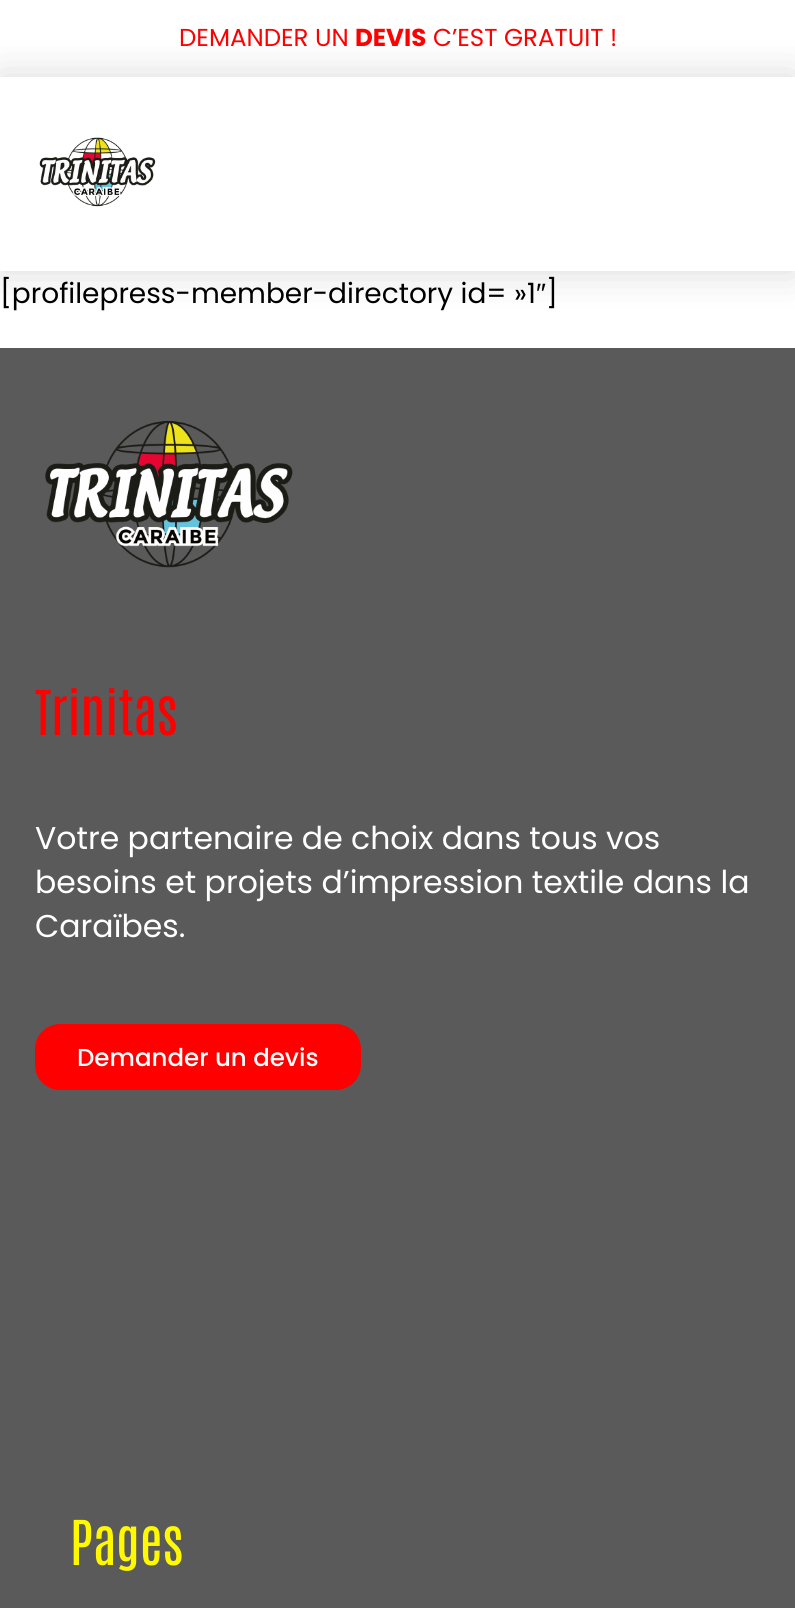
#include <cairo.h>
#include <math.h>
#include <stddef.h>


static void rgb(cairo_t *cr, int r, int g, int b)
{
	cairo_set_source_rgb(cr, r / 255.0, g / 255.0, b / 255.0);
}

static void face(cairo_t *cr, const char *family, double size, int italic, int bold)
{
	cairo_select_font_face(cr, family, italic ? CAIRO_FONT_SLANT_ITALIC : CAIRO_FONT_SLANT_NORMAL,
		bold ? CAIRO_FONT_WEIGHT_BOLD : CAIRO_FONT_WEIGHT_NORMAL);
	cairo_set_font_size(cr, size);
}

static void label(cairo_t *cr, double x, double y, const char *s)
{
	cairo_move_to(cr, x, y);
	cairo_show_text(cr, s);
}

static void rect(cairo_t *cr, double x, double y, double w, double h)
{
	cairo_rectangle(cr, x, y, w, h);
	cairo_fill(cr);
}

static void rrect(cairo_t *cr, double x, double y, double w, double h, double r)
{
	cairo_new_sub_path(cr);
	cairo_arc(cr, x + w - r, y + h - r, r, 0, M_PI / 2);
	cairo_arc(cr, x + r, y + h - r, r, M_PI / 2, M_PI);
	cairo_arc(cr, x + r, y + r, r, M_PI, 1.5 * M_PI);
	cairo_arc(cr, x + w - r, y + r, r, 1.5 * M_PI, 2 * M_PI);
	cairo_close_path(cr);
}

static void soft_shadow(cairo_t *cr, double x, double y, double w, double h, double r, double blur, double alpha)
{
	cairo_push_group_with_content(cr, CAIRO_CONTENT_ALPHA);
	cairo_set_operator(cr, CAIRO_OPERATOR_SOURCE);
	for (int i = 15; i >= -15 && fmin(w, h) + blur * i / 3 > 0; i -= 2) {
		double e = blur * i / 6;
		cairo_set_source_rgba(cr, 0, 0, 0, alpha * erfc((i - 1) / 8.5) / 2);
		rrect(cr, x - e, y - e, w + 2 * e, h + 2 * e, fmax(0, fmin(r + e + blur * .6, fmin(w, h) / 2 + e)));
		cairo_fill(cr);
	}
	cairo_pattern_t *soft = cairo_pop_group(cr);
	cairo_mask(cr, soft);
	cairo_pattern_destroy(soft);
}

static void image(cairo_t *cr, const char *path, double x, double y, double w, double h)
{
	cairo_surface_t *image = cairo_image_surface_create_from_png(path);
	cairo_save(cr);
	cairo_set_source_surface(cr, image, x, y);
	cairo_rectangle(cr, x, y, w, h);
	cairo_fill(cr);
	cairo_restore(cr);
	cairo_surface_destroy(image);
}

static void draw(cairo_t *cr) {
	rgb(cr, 255, 255, 255);
	cairo_paint(cr);
	cairo_save(cr);
	cairo_set_fill_rule(cr, CAIRO_FILL_RULE_EVEN_ODD);
	cairo_new_path(cr);
	cairo_move_to(cr, 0, 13);
	cairo_line_to(cr, 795, 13);
	cairo_line_to(cr, 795, 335);
	cairo_line_to(cr, 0, 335);
	cairo_close_path(cr);
	cairo_move_to(cr, 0, 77);
	cairo_line_to(cr, 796, 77);
	cairo_line_to(cr, 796, 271);
	cairo_line_to(cr, 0, 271);
	cairo_close_path(cr);
	cairo_clip(cr);
	rgb(cr, 0, 0, 0);
	soft_shadow(cr, 0, 77, 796, 194, 0, 21, 0.15);
	cairo_restore(cr);
	image(cr, "image0.png", 39, 137, 117, 70);
	face(cr, "Poppins", 24.5, 0, 0);
	rgb(cr, 255, 0, 0);
	label(cr, 179, 46, "DEMANDER UN");
	face(cr, "Poppins", 24.5, 0, 1);
	label(cr, 355, 46, "DEVIS");
	face(cr, "Poppins", 24.5, 0, 0);
	label(cr, 433, 46, "C’EST GRATUIT !");
	face(cr, "Poppins", 28, 0, 0);
	rgb(cr, 0, 0, 0);
	label(cr, 0, 303, "[profilepress-member-directory id= »1");
	face(cr, "Liberation Sans", 28, 0, 0);
	label(cr, 536, 303, "″");
	face(cr, "Poppins", 28, 0, 0);
	label(cr, 546, 303, "]");
	rgb(cr, 90, 90, 90);
	rect(cr, 0, 348, 795, 1260);
	image(cr, "image1.png", 45, 420, 248, 148);
	face(cr, "Antonio", 52.5, 0, 0);
	rgb(cr, 255, 0, 0);
	label(cr, 35, 735, "Trinitas");
	face(cr, "Poppins", 31.5, 0, 0);
	rgb(cr, 255, 255, 255);
	label(cr, 35, 849, "Votre partenaire de choix dans tous vos");
	label(cr, 35, 893, "besoins et projets d’impression textile dans la");
	label(cr, 35, 937, "Caraïbes.");
	rgb(cr, 255, 0, 0);
	rrect(cr, 35, 1024, 326, 66, 25);
	cairo_fill(cr);
	face(cr, "Poppins Medium", 24.5, 0, 0);
	rgb(cr, 255, 255, 255);
	label(cr, 77, 1066, "Demander un devis");
	face(cr, "Antonio", 52.5, 0, 0);
	rgb(cr, 255, 249, 0);
	label(cr, 70, 1565, "Pages");
}

int main(void) {
	cairo_surface_t *surface = cairo_image_surface_create(CAIRO_FORMAT_RGB24, 795, 1608);
	cairo_t *cr = cairo_create(surface);
	cairo_font_options_t *options = cairo_font_options_create();
	cairo_font_options_set_hint_metrics(options, CAIRO_HINT_METRICS_OFF);
	cairo_font_options_set_hint_style(options, CAIRO_HINT_STYLE_NONE);
	cairo_set_font_options(cr, options);
	cairo_set_miter_limit(cr, 4);
	draw(cr);
	cairo_surface_write_to_png(surface, "render.png");
	cairo_font_options_destroy(options);
	cairo_destroy(cr);
	cairo_surface_destroy(surface);
	return 0;
}
